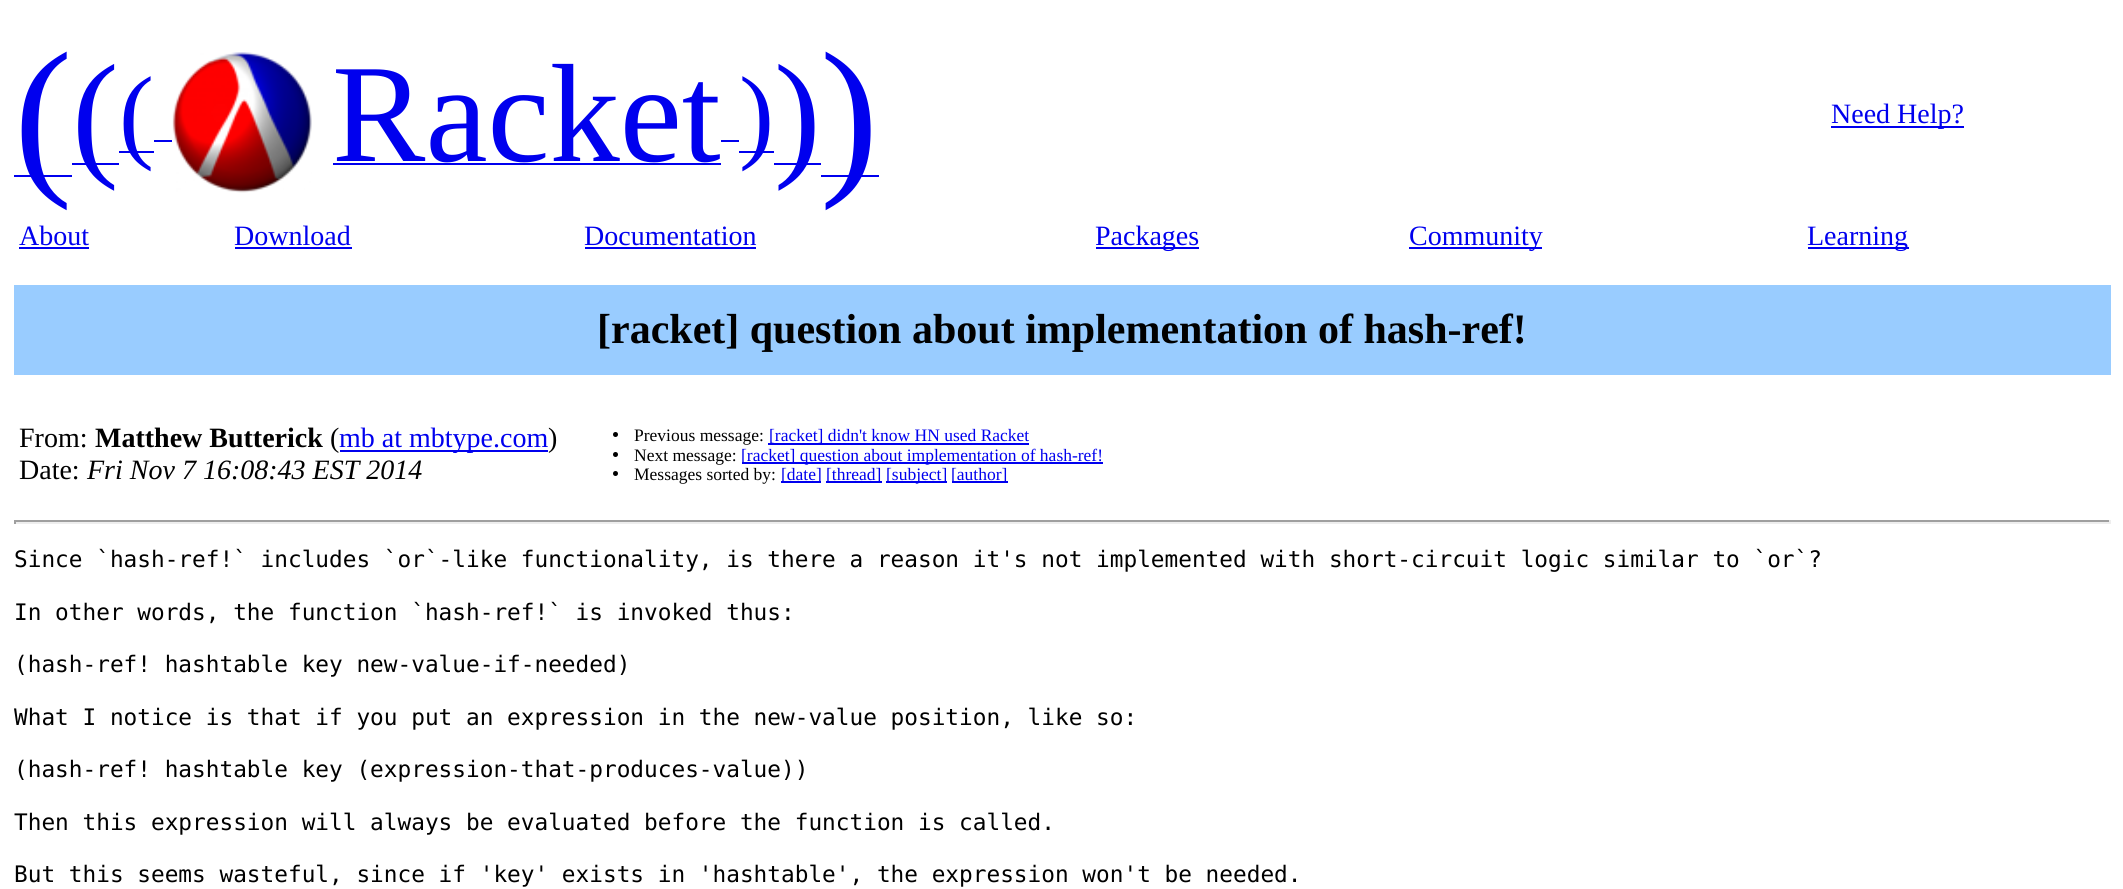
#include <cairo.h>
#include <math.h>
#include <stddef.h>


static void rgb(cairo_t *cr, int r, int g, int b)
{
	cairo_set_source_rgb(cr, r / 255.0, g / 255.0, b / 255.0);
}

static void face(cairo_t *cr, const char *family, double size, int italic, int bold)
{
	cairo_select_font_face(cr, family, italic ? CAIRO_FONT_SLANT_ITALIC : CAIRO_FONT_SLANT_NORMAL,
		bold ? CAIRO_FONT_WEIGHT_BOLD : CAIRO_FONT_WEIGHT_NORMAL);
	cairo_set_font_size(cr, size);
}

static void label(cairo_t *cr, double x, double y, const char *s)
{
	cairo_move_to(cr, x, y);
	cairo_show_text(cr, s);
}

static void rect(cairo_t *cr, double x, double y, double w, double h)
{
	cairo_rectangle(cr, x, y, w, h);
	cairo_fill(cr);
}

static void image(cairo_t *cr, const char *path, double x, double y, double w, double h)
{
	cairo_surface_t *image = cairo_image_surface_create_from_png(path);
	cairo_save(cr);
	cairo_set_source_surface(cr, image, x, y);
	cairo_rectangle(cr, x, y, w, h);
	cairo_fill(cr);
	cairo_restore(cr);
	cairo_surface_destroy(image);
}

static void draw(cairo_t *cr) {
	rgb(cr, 255, 255, 255);
	cairo_paint(cr);
	rgb(cr, 0, 0, 238);
	rect(cr, 14, 175, 58, 2);
	face(cr, "Liberation Serif", 175, 0, 0);
	label(cr, 14, 173, "(");
	rect(cr, 72, 163, 47, 2);
	face(cr, "Liberation Serif", 140, 0, 0);
	label(cr, 72, 161, "(");
	rect(cr, 119, 151, 35, 2);
	face(cr, "Liberation Serif", 105, 0, 0);
	label(cr, 119, 149, "(");
	rect(cr, 154, 140, 18, 2);
	image(cr, "image0.png", 172, 52, 140, 141);
	face(cr, "Liberation Serif", 140, 0, 0);
	label(cr, 332, 161, "Racket");
	rect(cr, 739, 151, 35, 2);
	face(cr, "Liberation Serif", 105, 0, 0);
	label(cr, 739, 149, ")");
	rect(cr, 333, 163, 388, 2);
	rect(cr, 721, 140, 18, 2);
	rect(cr, 774, 163, 47, 2);
	face(cr, "Liberation Serif", 140, 0, 0);
	label(cr, 774, 161, ")");
	rect(cr, 821, 175, 58, 2);
	face(cr, "Liberation Serif", 175, 0, 0);
	label(cr, 820, 173, ")");
	rect(cr, 1831, 126, 133, 2);
	face(cr, "Liberation Serif", 28, 0, 0);
	label(cr, 1831, 123, "Need Help?");
	label(cr, 19, 245, "About");
	rect(cr, 19, 247, 70, 2);
	label(cr, 234, 245, "Download");
	rect(cr, 235, 247, 117, 2);
	label(cr, 584, 245, "Documentation");
	rect(cr, 585, 247, 171, 2);
	rect(cr, 1096, 247, 103, 2);
	label(cr, 1095, 245, "Packages");
	rect(cr, 1409, 247, 133, 2);
	label(cr, 1409, 245, "Community");
	rect(cr, 1808, 247, 101, 2);
	label(cr, 1807, 245, "Learning");
	rgb(cr, 153, 204, 255);
	rect(cr, 14, 285, 2097, 90);
	face(cr, "Liberation Serif", 42, 0, 1);
	rgb(cr, 0, 0, 0);
	label(cr, 597, 343, "[racket] question about implementation of hash-ref!");
	face(cr, "Liberation Serif", 28, 0, 0);
	label(cr, 19, 447, "From:");
	face(cr, "Liberation Serif", 28, 0, 1);
	label(cr, 95, 447, "Matthew Butterick");
	face(cr, "Liberation Serif", 28, 0, 0);
	label(cr, 330, 447, "(");
	rgb(cr, 0, 0, 238);
	rect(cr, 340, 450, 208, 2);
	label(cr, 339, 447, "mb at mbtype.com");
	rgb(cr, 0, 0, 0);
	label(cr, 548, 447, ")");
	label(cr, 19, 479, "Date:");
	face(cr, "Liberation Serif", 28, 1, 0);
	label(cr, 87, 479, "Fri Nov 7 16:08:43 EST 2014");
	cairo_new_path(cr);
	cairo_arc(cr, 615.5, 434.5, 2.5, 0, 2 * M_PI);
	cairo_fill(cr);
	face(cr, "Liberation Serif", 17.5, 0, 0);
	label(cr, 634, 441, "Previous message:");
	rgb(cr, 0, 0, 238);
	rect(cr, 768, 443, 261, 2);
	label(cr, 769, 441, "[racket] didn't know HN used Racket");
	rgb(cr, 0, 0, 0);
	cairo_new_path(cr);
	cairo_arc(cr, 615.5, 454.5, 2.5, 0, 2 * M_PI);
	cairo_fill(cr);
	label(cr, 634, 461, "Next message:");
	rgb(cr, 0, 0, 238);
	rect(cr, 742, 462, 361, 2);
	label(cr, 741, 461, "[racket] question about implementation of hash-ref!");
	rgb(cr, 0, 0, 0);
	cairo_new_path(cr);
	cairo_arc(cr, 615.5, 473.5, 2.5, 0, 2 * M_PI);
	cairo_fill(cr);
	label(cr, 634, 480, "Messages sorted by:");
	rgb(cr, 0, 0, 238);
	rect(cr, 781, 481, 40, 2);
	label(cr, 781, 480, "[date]");
	rect(cr, 826, 481, 56, 2);
	label(cr, 826, 480, "[thread]");
	rect(cr, 886, 481, 61, 2);
	label(cr, 886, 480, "[subject]");
	rect(cr, 952, 481, 56, 2);
	label(cr, 951, 480, "[author]");
	rgb(cr, 159, 159, 159);
	rect(cr, 14, 520, 2097, 2);
	rgb(cr, 238, 238, 238);
	rect(cr, 2109, 520, 2, 4);
	rect(cr, 14, 522, 2097, 2);
	rgb(cr, 159, 159, 159);
	rect(cr, 14, 520, 2, 4);
	face(cr, "DejaVu Sans Mono", 22.75, 0, 0);
	rgb(cr, 0, 0, 0);
	label(cr, 14, 567, "Since `hash-ref!` includes `or`-like functionality, is there a reason it's not implemented with short-circuit logic similar to `or`?");
	label(cr, 14, 620, "In other words, the function `hash-ref!` is invoked thus:");
	label(cr, 14, 672, "(hash-ref! hashtable key new-value-if-needed)");
	label(cr, 14, 725, "What I notice is that if you put an expression in the new-value position, like so:");
	label(cr, 14, 777, "(hash-ref! hashtable key (expression-that-produces-value))");
	label(cr, 14, 830, "Then this expression will always be evaluated before the function is called.");
	label(cr, 14, 882, "But this seems wasteful, since if 'key' exists in 'hashtable', the expression won't be needed.");
}

int main(void) {
	cairo_surface_t *surface = cairo_image_surface_create(CAIRO_FORMAT_RGB24, 2123, 889);
	cairo_t *cr = cairo_create(surface);
	cairo_font_options_t *options = cairo_font_options_create();
	cairo_font_options_set_hint_metrics(options, CAIRO_HINT_METRICS_OFF);
	cairo_font_options_set_hint_style(options, CAIRO_HINT_STYLE_NONE);
	cairo_set_font_options(cr, options);
	cairo_set_miter_limit(cr, 4);
	draw(cr);
	cairo_surface_write_to_png(surface, "render.png");
	cairo_font_options_destroy(options);
	cairo_destroy(cr);
	cairo_surface_destroy(surface);
	return 0;
}
